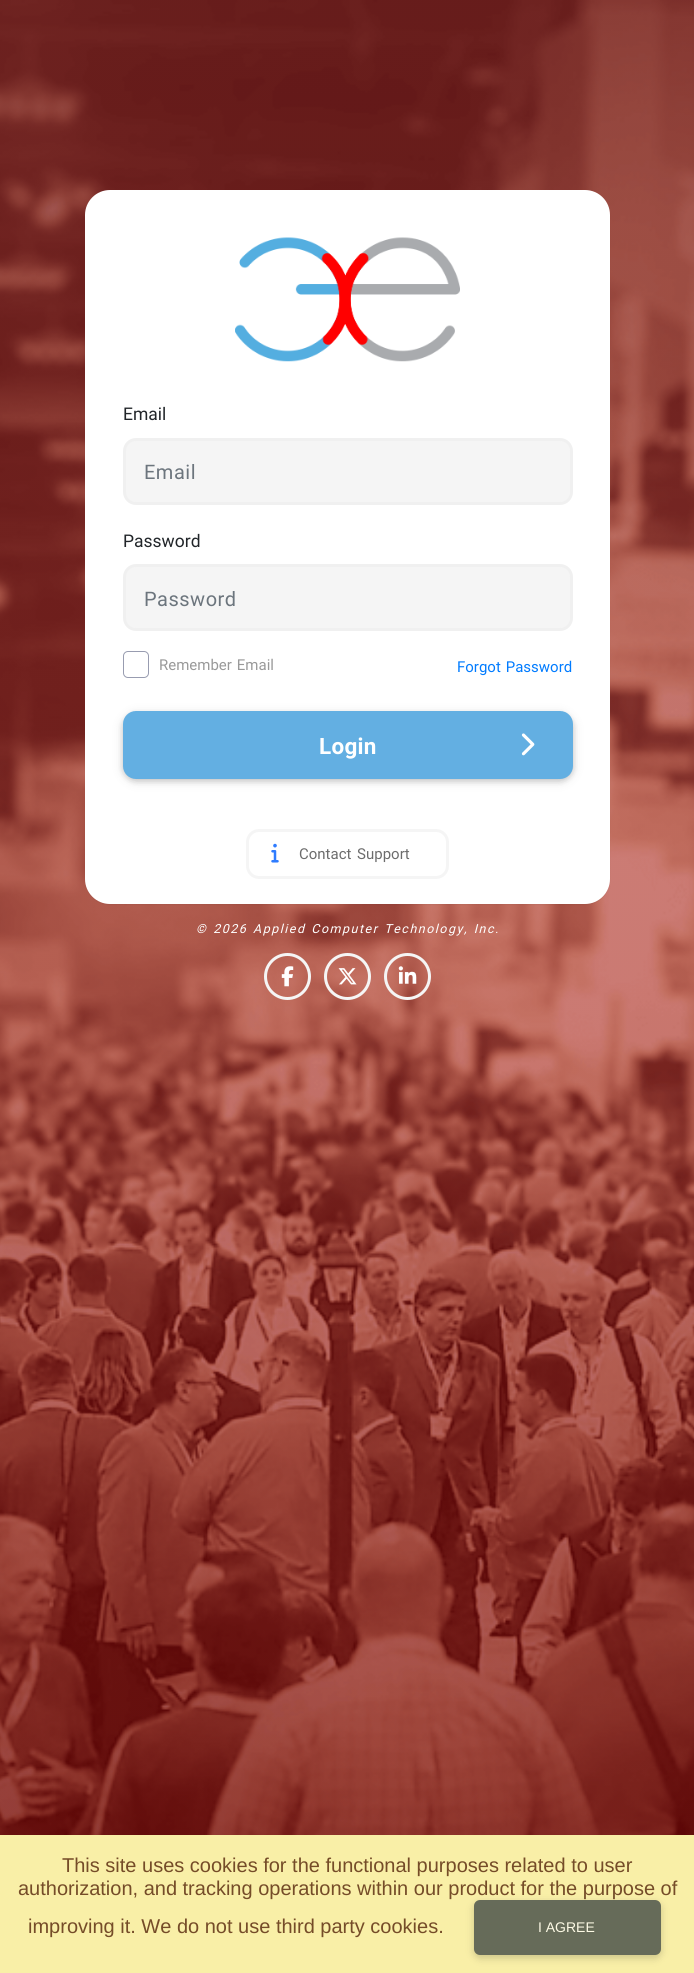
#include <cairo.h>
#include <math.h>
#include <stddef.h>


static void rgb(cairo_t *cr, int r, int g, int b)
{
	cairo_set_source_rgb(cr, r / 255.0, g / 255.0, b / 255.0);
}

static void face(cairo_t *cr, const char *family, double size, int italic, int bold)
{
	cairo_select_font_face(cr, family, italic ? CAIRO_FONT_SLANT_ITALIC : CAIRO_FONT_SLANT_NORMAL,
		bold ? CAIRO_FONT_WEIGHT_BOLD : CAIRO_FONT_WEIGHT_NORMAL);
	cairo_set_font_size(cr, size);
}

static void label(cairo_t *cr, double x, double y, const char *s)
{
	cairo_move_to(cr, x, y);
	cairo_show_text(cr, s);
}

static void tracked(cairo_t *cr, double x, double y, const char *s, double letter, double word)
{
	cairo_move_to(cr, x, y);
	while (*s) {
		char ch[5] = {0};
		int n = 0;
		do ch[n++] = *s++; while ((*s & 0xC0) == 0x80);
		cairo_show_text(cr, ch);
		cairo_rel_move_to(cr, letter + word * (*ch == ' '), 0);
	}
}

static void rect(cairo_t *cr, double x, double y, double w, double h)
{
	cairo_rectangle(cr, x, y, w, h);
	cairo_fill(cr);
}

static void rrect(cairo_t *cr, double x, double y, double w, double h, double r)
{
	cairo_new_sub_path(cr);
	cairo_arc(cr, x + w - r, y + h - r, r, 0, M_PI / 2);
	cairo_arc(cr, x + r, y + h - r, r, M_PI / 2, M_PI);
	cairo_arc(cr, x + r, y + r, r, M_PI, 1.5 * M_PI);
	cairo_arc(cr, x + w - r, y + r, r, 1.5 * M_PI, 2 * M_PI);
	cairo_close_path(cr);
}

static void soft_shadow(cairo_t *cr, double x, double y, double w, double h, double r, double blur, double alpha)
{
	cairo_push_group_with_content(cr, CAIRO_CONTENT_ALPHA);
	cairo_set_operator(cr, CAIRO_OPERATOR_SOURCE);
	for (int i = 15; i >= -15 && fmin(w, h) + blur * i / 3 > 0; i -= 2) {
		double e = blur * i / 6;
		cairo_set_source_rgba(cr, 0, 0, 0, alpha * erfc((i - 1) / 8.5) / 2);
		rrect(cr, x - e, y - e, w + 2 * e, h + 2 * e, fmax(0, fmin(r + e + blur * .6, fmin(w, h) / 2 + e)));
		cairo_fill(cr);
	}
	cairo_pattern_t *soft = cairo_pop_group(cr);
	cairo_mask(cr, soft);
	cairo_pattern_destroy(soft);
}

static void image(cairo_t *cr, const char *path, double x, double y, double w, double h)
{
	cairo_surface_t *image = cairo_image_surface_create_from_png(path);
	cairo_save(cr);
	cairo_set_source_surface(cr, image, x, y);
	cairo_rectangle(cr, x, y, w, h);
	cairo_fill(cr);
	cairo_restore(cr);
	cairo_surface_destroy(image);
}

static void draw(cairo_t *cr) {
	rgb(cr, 255, 255, 255);
	cairo_paint(cr);
	image(cr, "image0.png", 0, 0, 694, 1835);
	rgb(cr, 0, 0, 0);
	soft_shadow(cr, 85, 191, 525, 714, 25, 0.5, 0.05);
	rgb(cr, 255, 255, 255);
	rrect(cr, 85, 190, 525, 714, 25);
	cairo_fill(cr);
	image(cr, "image1.png", 235, 237, 225, 125);
	face(cr, "Roboto", 17.5, 0, 0);
	rgb(cr, 33, 37, 41);
	label(cr, 123, 420, "Email");
	rgb(cr, 245, 245, 245);
	rrect(cr, 124.5, 439.5, 447, 64, 11.5);
	cairo_fill_preserve(cr);
	rgb(cr, 240, 240, 240);
	cairo_set_line_width(cr, 3);
	cairo_stroke(cr);
	face(cr, "Roboto", 20, 0, 0);
	rgb(cr, 108, 117, 125);
	tracked(cr, 144, 479, "Email", 0.5, 0);
	face(cr, "Roboto", 17.5, 0, 0);
	rgb(cr, 33, 37, 41);
	label(cr, 123, 547, "Password");
	rgb(cr, 245, 245, 245);
	rrect(cr, 124.5, 565.5, 447, 64, 11.5);
	cairo_fill_preserve(cr);
	rgb(cr, 240, 240, 240);
	cairo_stroke(cr);
	face(cr, "Roboto", 20, 0, 0);
	rgb(cr, 108, 117, 125);
	tracked(cr, 144, 606, "Password", 0.5, 0);
	rrect(cr, 123.5, 651.5, 25, 26, 4.5);
	rgb(cr, 152, 156, 176);
	cairo_set_line_width(cr, 1);
	cairo_stroke(cr);
	face(cr, "Roboto", 15, 0, 0);
	rgb(cr, 153, 153, 153);
	tracked(cr, 159, 670, "Remember Email", 0, 1.25);
	rgb(cr, 0, 123, 255);
	tracked(cr, 457, 672, "Forgot Password", 0, 1.25);
	rgb(cr, 0, 0, 0);
	soft_shadow(cr, 123, 714, 450, 67, 13, 6, 0.12);
	soft_shadow(cr, 123, 714, 450, 67, 13, 3, 0.16);
	rgb(cr, 99, 175, 226);
	rrect(cr, 123, 711, 450, 68, 13);
	cairo_fill(cr);
	face(cr, "Roboto", 22.5, 0, 1);
	rgb(cr, 255, 255, 255);
	tracked(cr, 319, 754, "Login", 0.25, 0);
	image(cr, "image2.png", 521, 733, 14, 23);
	rrect(cr, 247.5, 830.5, 200, 47, 11.5);
	rgb(cr, 245, 245, 245);
	cairo_set_line_width(cr, 3);
	cairo_stroke(cr);
	image(cr, "image3.png", 271, 843, 8, 20);
	face(cr, "Roboto", 15, 0, 0);
	rgb(cr, 108, 108, 108);
	tracked(cr, 299, 859, "Contact Support", 0, 2);
	face(cr, "Roboto", 12.5, 1, 0);
	rgb(cr, 255, 255, 255);
	tracked(cr, 196, 933, "© 2026 Applied Computer Technology, Inc.", 1.5, 1.25);
	cairo_new_path(cr);
	cairo_arc(cr, 287.5, 976.5, 22, 0, 2 * M_PI);
	rgb(cr, 245, 245, 245);
	cairo_stroke(cr);
	image(cr, "image4.png", 281, 966, 13, 21);
	cairo_arc(cr, 347.5, 976.5, 22, 0, 2 * M_PI);
	cairo_stroke(cr);
	image(cr, "image5.png", 338, 968, 19, 17);
	cairo_arc(cr, 407.5, 976.5, 22, 0, 2 * M_PI);
	cairo_stroke(cr);
	image(cr, "image6.png", 398, 966, 19, 18);
	rgb(cr, 249, 239, 167);
	rect(cr, 0, 1835, 694, 138);
	face(cr, "Liberation Sans", 20, 0, 0);
	rgb(cr, 117, 76, 40);
	label(cr, 62, 1872, "This site uses cookies for the functional purposes related to user");
	label(cr, 18, 1895, "authorization, and tracking operations within our product for the purpose of");
	label(cr, 28, 1933, "improving it. We do not use third party cookies.");
	rgb(cr, 0, 0, 0);
	soft_shadow(cr, 474, 1903, 187, 55, 6, 6, 0.08);
	soft_shadow(cr, 474, 1903, 187, 55, 6, 3, 0.11);
	rgb(cr, 102, 107, 89);
	rrect(cr, 474, 1900, 187, 55, 6);
	cairo_fill(cr);
	face(cr, "Liberation Sans", 14, 0, 0);
	rgb(cr, 253, 250, 229);
	label(cr, 538, 1932, "I AGREE");
}

int main(void) {
	cairo_surface_t *surface = cairo_image_surface_create(CAIRO_FORMAT_RGB24, 694, 1973);
	cairo_t *cr = cairo_create(surface);
	cairo_font_options_t *options = cairo_font_options_create();
	cairo_font_options_set_hint_metrics(options, CAIRO_HINT_METRICS_OFF);
	cairo_font_options_set_hint_style(options, CAIRO_HINT_STYLE_NONE);
	cairo_set_font_options(cr, options);
	cairo_set_miter_limit(cr, 4);
	draw(cr);
	cairo_surface_write_to_png(surface, "render.png");
	cairo_font_options_destroy(options);
	cairo_destroy(cr);
	cairo_surface_destroy(surface);
	return 0;
}
